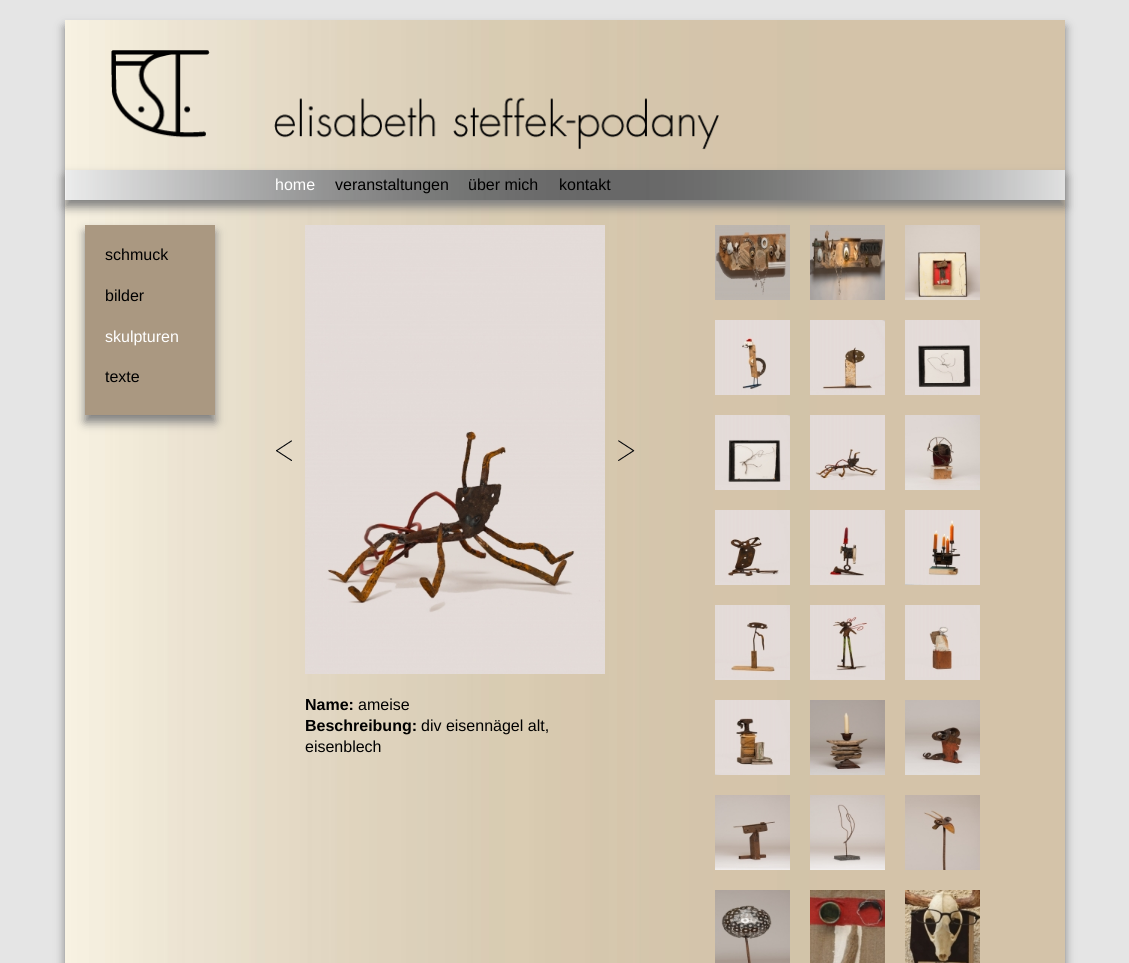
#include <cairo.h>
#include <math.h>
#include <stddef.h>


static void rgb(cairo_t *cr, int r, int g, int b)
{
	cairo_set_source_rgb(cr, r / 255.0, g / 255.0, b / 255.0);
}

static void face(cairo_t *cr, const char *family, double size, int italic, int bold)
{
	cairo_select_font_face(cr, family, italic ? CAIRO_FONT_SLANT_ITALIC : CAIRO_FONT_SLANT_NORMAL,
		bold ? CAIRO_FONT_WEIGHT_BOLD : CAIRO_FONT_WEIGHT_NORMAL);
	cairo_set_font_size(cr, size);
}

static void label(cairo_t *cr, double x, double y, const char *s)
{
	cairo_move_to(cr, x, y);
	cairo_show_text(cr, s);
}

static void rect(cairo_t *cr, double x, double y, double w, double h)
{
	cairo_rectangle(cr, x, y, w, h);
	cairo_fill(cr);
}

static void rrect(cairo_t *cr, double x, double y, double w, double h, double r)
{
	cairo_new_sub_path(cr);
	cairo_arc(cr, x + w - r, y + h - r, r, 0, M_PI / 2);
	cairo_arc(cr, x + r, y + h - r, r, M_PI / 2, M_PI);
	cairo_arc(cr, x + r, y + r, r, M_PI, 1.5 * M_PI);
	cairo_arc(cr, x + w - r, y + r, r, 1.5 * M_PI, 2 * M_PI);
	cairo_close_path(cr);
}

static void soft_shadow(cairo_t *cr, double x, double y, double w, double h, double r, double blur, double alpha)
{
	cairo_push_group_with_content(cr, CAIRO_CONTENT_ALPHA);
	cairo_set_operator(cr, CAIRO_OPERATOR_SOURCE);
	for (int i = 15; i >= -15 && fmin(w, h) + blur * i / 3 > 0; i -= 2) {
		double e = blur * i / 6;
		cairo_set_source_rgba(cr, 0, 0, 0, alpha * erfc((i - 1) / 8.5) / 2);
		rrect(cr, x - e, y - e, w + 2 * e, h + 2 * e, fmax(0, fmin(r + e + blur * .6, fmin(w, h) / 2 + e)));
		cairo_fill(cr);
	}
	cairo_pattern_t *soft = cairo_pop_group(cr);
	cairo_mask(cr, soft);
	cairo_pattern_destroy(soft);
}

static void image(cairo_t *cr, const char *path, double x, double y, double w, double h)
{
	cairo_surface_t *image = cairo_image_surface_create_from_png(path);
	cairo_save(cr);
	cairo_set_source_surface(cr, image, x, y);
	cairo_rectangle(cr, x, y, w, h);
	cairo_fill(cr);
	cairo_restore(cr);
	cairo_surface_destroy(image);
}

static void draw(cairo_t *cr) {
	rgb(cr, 229, 229, 229);
	cairo_paint(cr);
	rgb(cr, 127, 127, 127);
	soft_shadow(cr, 65, 27, 1000, 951, 0, 5, 1);
	image(cr, "image0.png", 65, 20, 1000, 943);
	image(cr, "image1.png", 111, 50, 608, 100);
	soft_shadow(cr, 65, 177, 1000, 30, 0, 5, 1);
	image(cr, "image2.png", 65, 170, 1000, 30);
	face(cr, "Liberation Sans", 16, 0, 0);
	rgb(cr, 255, 255, 255);
	label(cr, 275, 190, "home");
	rgb(cr, 0, 0, 0);
	label(cr, 335, 190, "veranstaltungen");
	label(cr, 468, 190, "über mich");
	label(cr, 559, 190, "kontakt");
	rgb(cr, 127, 127, 127);
	soft_shadow(cr, 85, 232, 130, 190, 0, 5, 1);
	rgb(cr, 170, 152, 129);
	rect(cr, 85, 225, 130, 190);
	rgb(cr, 0, 0, 0);
	label(cr, 105, 260, "schmuck");
	label(cr, 105, 301, "bilder");
	rgb(cr, 255, 255, 255);
	label(cr, 105, 342, "skulpturen");
	rgb(cr, 0, 0, 0);
	label(cr, 105, 382, "texte");
	image(cr, "image3.png", 276, 440, 16, 21);
	image(cr, "image4.png", 618, 440, 17, 21);
	image(cr, "image5.png", 305, 225, 300, 449);
	face(cr, "Liberation Sans", 16, 0, 1);
	label(cr, 305, 710, "Name:");
	face(cr, "Liberation Sans", 16, 0, 0);
	label(cr, 358, 710, "ameise");
	face(cr, "Liberation Sans", 16, 0, 1);
	label(cr, 305, 731, "Beschreibung:");
	face(cr, "Liberation Sans", 16, 0, 0);
	label(cr, 421, 731, "div eisennägel alt,");
	label(cr, 305, 752, "eisenblech");
	image(cr, "image6.png", 715, 225, 75, 75);
	image(cr, "image7.png", 810, 225, 75, 75);
	image(cr, "image8.png", 905, 225, 75, 75);
	image(cr, "image9.png", 715, 320, 75, 75);
	image(cr, "image10.png", 810, 320, 75, 75);
	image(cr, "image11.png", 905, 320, 75, 75);
	image(cr, "image12.png", 715, 415, 75, 75);
	image(cr, "image13.png", 810, 415, 75, 75);
	image(cr, "image14.png", 905, 415, 75, 75);
	image(cr, "image15.png", 715, 510, 75, 75);
	image(cr, "image16.png", 810, 510, 75, 75);
	image(cr, "image17.png", 905, 510, 75, 75);
	image(cr, "image18.png", 715, 605, 75, 75);
	image(cr, "image19.png", 810, 605, 75, 75);
	image(cr, "image20.png", 905, 605, 75, 75);
	image(cr, "image21.png", 715, 700, 75, 75);
	image(cr, "image22.png", 810, 700, 75, 75);
	image(cr, "image23.png", 905, 700, 75, 75);
	image(cr, "image24.png", 715, 795, 75, 75);
	image(cr, "image25.png", 810, 795, 75, 75);
	image(cr, "image26.png", 905, 795, 75, 75);
	image(cr, "image27.png", 715, 890, 75, 73);
	image(cr, "image28.png", 810, 890, 75, 73);
	image(cr, "image29.png", 905, 890, 75, 73);
}

int main(void) {
	cairo_surface_t *surface = cairo_image_surface_create(CAIRO_FORMAT_RGB24, 1129, 963);
	cairo_t *cr = cairo_create(surface);
	cairo_font_options_t *options = cairo_font_options_create();
	cairo_font_options_set_hint_metrics(options, CAIRO_HINT_METRICS_OFF);
	cairo_font_options_set_hint_style(options, CAIRO_HINT_STYLE_NONE);
	cairo_set_font_options(cr, options);
	cairo_set_miter_limit(cr, 4);
	draw(cr);
	cairo_surface_write_to_png(surface, "render.png");
	cairo_font_options_destroy(options);
	cairo_destroy(cr);
	cairo_surface_destroy(surface);
	return 0;
}
